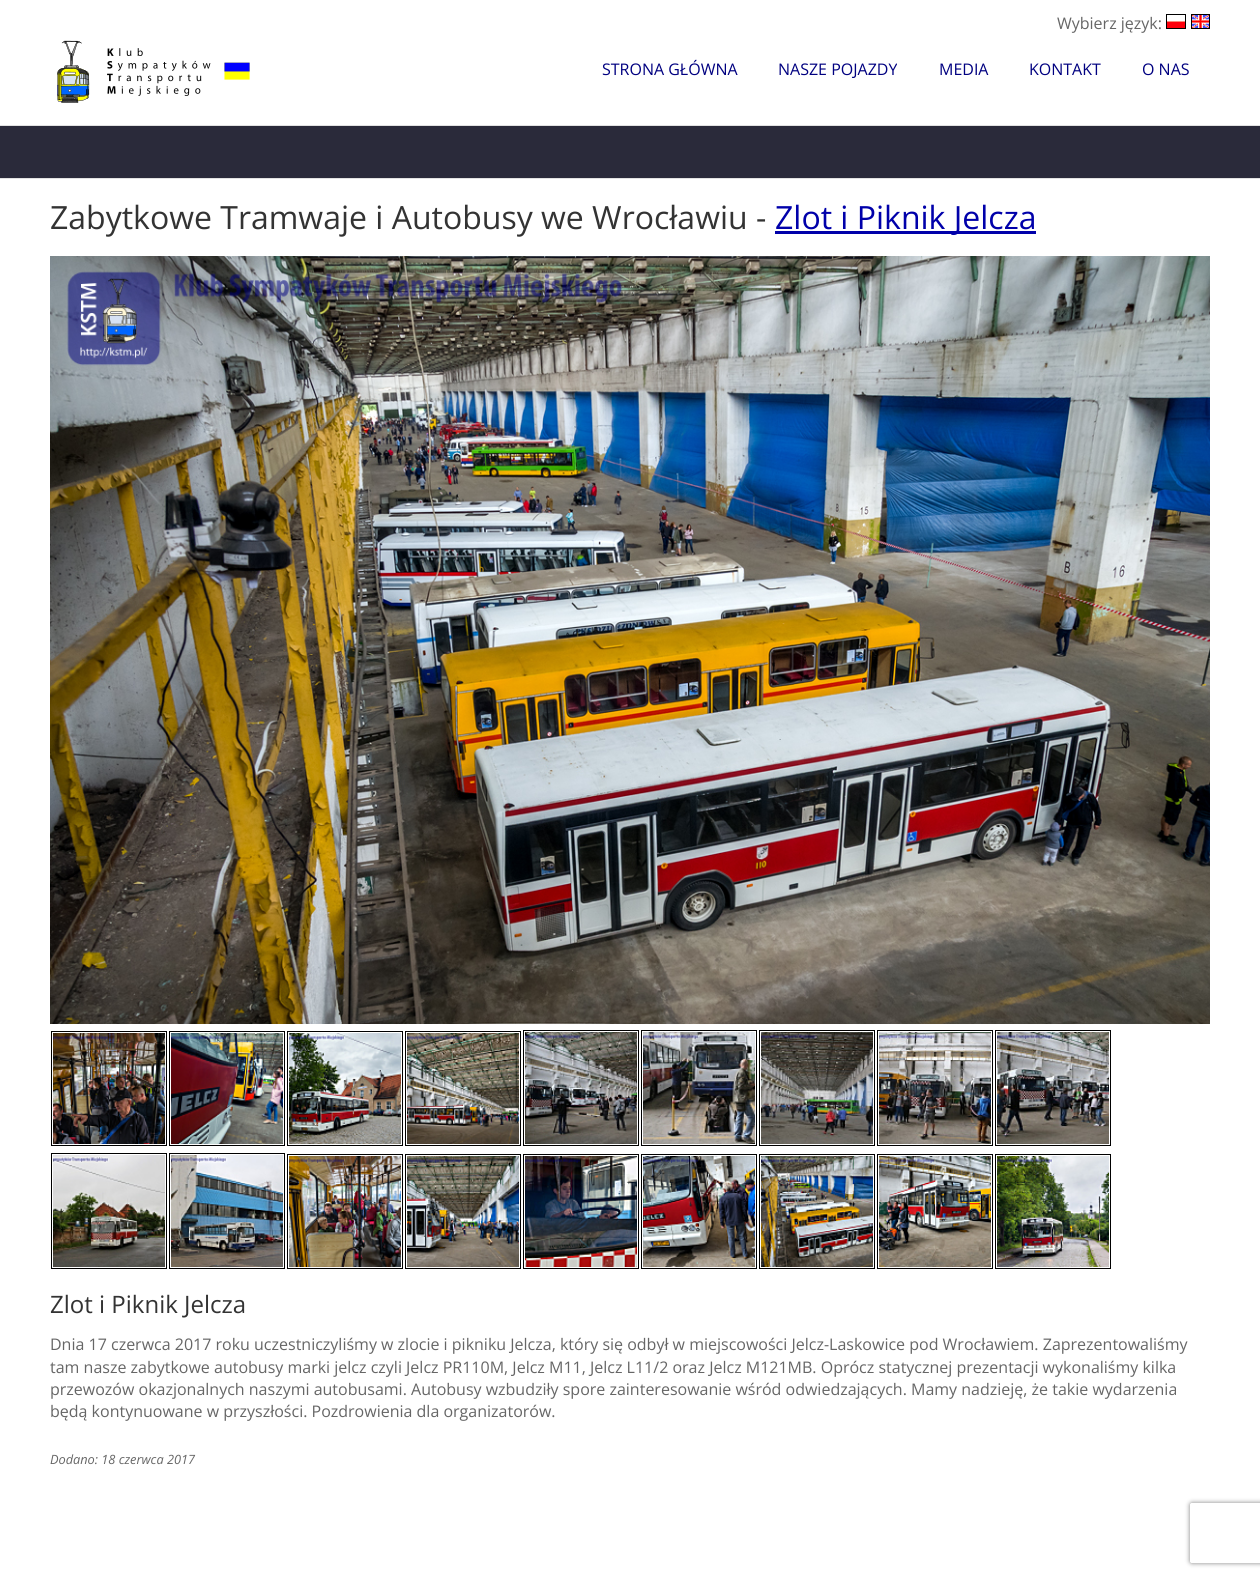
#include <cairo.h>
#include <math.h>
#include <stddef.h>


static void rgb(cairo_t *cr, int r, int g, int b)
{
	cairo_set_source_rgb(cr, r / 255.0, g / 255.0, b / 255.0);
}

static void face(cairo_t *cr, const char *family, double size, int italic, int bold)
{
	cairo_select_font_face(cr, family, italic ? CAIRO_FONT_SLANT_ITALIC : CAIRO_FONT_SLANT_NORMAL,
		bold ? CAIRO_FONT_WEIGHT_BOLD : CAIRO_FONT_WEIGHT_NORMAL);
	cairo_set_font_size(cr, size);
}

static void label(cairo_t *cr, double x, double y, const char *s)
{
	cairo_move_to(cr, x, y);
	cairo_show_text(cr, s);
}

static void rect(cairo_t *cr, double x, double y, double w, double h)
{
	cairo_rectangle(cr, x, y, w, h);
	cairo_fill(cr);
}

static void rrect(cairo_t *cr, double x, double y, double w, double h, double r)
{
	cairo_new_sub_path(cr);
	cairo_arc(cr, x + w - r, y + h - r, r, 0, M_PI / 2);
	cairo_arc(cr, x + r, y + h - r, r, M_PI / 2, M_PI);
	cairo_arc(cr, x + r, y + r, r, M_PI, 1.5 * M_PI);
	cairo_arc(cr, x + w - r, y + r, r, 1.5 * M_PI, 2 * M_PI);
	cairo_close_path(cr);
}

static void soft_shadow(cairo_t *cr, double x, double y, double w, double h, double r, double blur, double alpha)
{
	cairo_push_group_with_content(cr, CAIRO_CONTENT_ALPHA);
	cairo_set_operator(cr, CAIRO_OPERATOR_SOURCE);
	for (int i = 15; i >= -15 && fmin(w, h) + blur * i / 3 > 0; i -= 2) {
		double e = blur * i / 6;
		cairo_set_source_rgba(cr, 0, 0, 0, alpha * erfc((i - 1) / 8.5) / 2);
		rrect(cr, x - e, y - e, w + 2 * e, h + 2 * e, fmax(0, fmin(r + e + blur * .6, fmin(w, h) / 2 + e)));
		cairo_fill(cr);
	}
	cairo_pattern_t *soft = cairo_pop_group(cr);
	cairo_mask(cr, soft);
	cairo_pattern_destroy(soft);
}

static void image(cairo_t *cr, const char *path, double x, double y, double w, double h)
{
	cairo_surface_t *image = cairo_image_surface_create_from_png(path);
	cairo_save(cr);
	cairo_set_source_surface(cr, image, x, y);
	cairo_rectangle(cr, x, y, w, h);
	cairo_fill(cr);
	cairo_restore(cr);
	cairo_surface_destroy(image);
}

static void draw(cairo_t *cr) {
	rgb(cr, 255, 255, 255);
	cairo_paint(cr);
	face(cr, "Open Sans", 16, 0, 0);
	rgb(cr, 102, 102, 102);
	label(cr, 1057, 29, "Wybierz język:");
	image(cr, "image0.png", 1166, 14, 20, 15);
	image(cr, "image1.png", 1191, 14, 19, 15);
	image(cr, "image2.png", 57, 40, 193, 63);
	rgb(cr, 0, 0, 128);
	label(cr, 602, 75, "STRONA GŁÓWNA");
	label(cr, 778, 75, "NASZE POJAZDY");
	label(cr, 939, 75, "MEDIA");
	label(cr, 1029, 75, "KONTAKT");
	label(cr, 1142, 75, "O NAS");
	rgb(cr, 42, 42, 58);
	rect(cr, 0, 126, 1260, 52);
	rgb(cr, 226, 226, 226);
	rect(cr, 0, 125, 1260, 1);
	rect(cr, 0, 178, 1260, 1);
	face(cr, "Open Sans", 32, 0, 0);
	rgb(cr, 51, 51, 51);
	label(cr, 50, 229, "Zabytkowe Tramwaje i Autobusy we Wrocławiu -");
	rgb(cr, 0, 0, 170);
	rect(cr, 775, 231, 261, 3);
	label(cr, 775, 229, "Zlot i Piknik Jelcza");
	image(cr, "image3.png", 50, 256, 1160, 768);
	cairo_rectangle(cr, 51.5, 1031.5, 115, 114);
	rgb(cr, 0, 0, 0);
	cairo_set_line_width(cr, 1);
	cairo_stroke(cr);
	cairo_rectangle(cr, 169.5, 1031.5, 115, 114);
	cairo_stroke(cr);
	cairo_rectangle(cr, 287.5, 1031.5, 115, 114);
	cairo_stroke(cr);
	cairo_rectangle(cr, 405.5, 1031.5, 115, 114);
	cairo_stroke(cr);
	cairo_rectangle(cr, 523.5, 1030.5, 115, 115);
	cairo_stroke(cr);
	cairo_rectangle(cr, 641.5, 1030.5, 115, 115);
	cairo_stroke(cr);
	cairo_rectangle(cr, 759.5, 1030.5, 115, 115);
	cairo_stroke(cr);
	cairo_rectangle(cr, 877.5, 1030.5, 115, 115);
	cairo_stroke(cr);
	cairo_rectangle(cr, 995.5, 1030.5, 115, 115);
	cairo_stroke(cr);
	image(cr, "image4.png", 53, 1033, 112, 111);
	image(cr, "image5.png", 171, 1033, 112, 111);
	image(cr, "image6.png", 289, 1033, 112, 111);
	image(cr, "image7.png", 407, 1033, 112, 111);
	image(cr, "image8.png", 525, 1032, 112, 112);
	image(cr, "image9.png", 643, 1032, 112, 112);
	image(cr, "image10.png", 761, 1032, 112, 112);
	image(cr, "image11.png", 879, 1032, 112, 112);
	image(cr, "image12.png", 997, 1032, 112, 112);
	cairo_rectangle(cr, 51.5, 1153.5, 115, 115);
	cairo_stroke(cr);
	cairo_rectangle(cr, 169.5, 1153.5, 115, 115);
	cairo_stroke(cr);
	cairo_rectangle(cr, 287.5, 1154.5, 115, 114);
	cairo_stroke(cr);
	cairo_rectangle(cr, 405.5, 1154.5, 115, 114);
	cairo_stroke(cr);
	cairo_rectangle(cr, 523.5, 1154.5, 115, 114);
	cairo_stroke(cr);
	cairo_rectangle(cr, 641.5, 1154.5, 115, 114);
	cairo_stroke(cr);
	cairo_rectangle(cr, 759.5, 1154.5, 115, 114);
	cairo_stroke(cr);
	cairo_rectangle(cr, 877.5, 1154.5, 115, 114);
	cairo_stroke(cr);
	cairo_rectangle(cr, 995.5, 1154.5, 115, 114);
	cairo_stroke(cr);
	image(cr, "image13.png", 53, 1155, 112, 112);
	image(cr, "image14.png", 171, 1155, 112, 112);
	image(cr, "image15.png", 289, 1156, 112, 111);
	image(cr, "image16.png", 407, 1156, 112, 111);
	image(cr, "image17.png", 525, 1156, 112, 111);
	image(cr, "image18.png", 643, 1156, 112, 111);
	image(cr, "image19.png", 761, 1156, 112, 111);
	image(cr, "image20.png", 879, 1156, 112, 111);
	image(cr, "image21.png", 997, 1156, 112, 111);
	face(cr, "Open Sans", 24, 0, 0);
	rgb(cr, 51, 51, 51);
	label(cr, 50, 1313, "Zlot i Piknik Jelcza");
	face(cr, "Open Sans", 16, 0, 0);
	rgb(cr, 102, 102, 102);
	label(cr, 50, 1350, "Dnia 17 czerwca 2017 roku uczestniczyliśmy w zlocie i pikniku Jelcza, który się odbył w miejscowości Jelcz-Laskowice pod Wrocławiem. Zaprezentowaliśmy");
	label(cr, 50, 1373, "tam nasze zabytkowe autobusy marki jelcz czyli Jelcz PR110M, Jelcz M11, Jelcz L11/2 oraz Jelcz M121MB. Oprócz statycznej prezentacji wykonaliśmy kilka");
	label(cr, 50, 1395, "przewozów okazjonalnych naszymi autobusami. Autobusy wzbudziły spore zainteresowanie wśród odwiedzających. Mamy nadzieję, że takie wydarzenia");
	label(cr, 50, 1417, "będą kontynuowane w przyszłości. Pozdrowienia dla organizatorów.");
	face(cr, "Open Sans", 12.75, 1, 0);
	label(cr, 50, 1464, "Dodano: 18 czerwca 2017");
	cairo_save(cr);
	cairo_set_fill_rule(cr, CAIRO_FILL_RULE_EVEN_ODD);
	cairo_new_path(cr);
	cairo_move_to(cr, 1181, 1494);
	cairo_line_to(cr, 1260, 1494);
	cairo_line_to(cr, 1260, 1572);
	cairo_line_to(cr, 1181, 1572);
	cairo_close_path(cr);
	cairo_move_to(cr, 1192, 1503);
	cairo_line_to(cr, 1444, 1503);
	cairo_curve_to(cr, 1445, 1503, 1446, 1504, 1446, 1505);
	cairo_line_to(cr, 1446, 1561);
	cairo_curve_to(cr, 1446, 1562, 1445, 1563, 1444, 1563);
	cairo_line_to(cr, 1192, 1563);
	cairo_curve_to(cr, 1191, 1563, 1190, 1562, 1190, 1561);
	cairo_line_to(cr, 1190, 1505);
	cairo_curve_to(cr, 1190, 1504, 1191, 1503, 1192, 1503);
	cairo_close_path(cr);
	cairo_clip(cr);
	rgb(cr, 128, 128, 128);
	soft_shadow(cr, 1190, 1503, 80, 60, 2, 2.5, 1);
	cairo_restore(cr);
}

int main(void) {
	cairo_surface_t *surface = cairo_image_surface_create(CAIRO_FORMAT_RGB24, 1260, 1577);
	cairo_t *cr = cairo_create(surface);
	cairo_font_options_t *options = cairo_font_options_create();
	cairo_font_options_set_hint_metrics(options, CAIRO_HINT_METRICS_OFF);
	cairo_font_options_set_hint_style(options, CAIRO_HINT_STYLE_NONE);
	cairo_set_font_options(cr, options);
	cairo_set_miter_limit(cr, 4);
	draw(cr);
	cairo_surface_write_to_png(surface, "render.png");
	cairo_font_options_destroy(options);
	cairo_destroy(cr);
	cairo_surface_destroy(surface);
	return 0;
}
